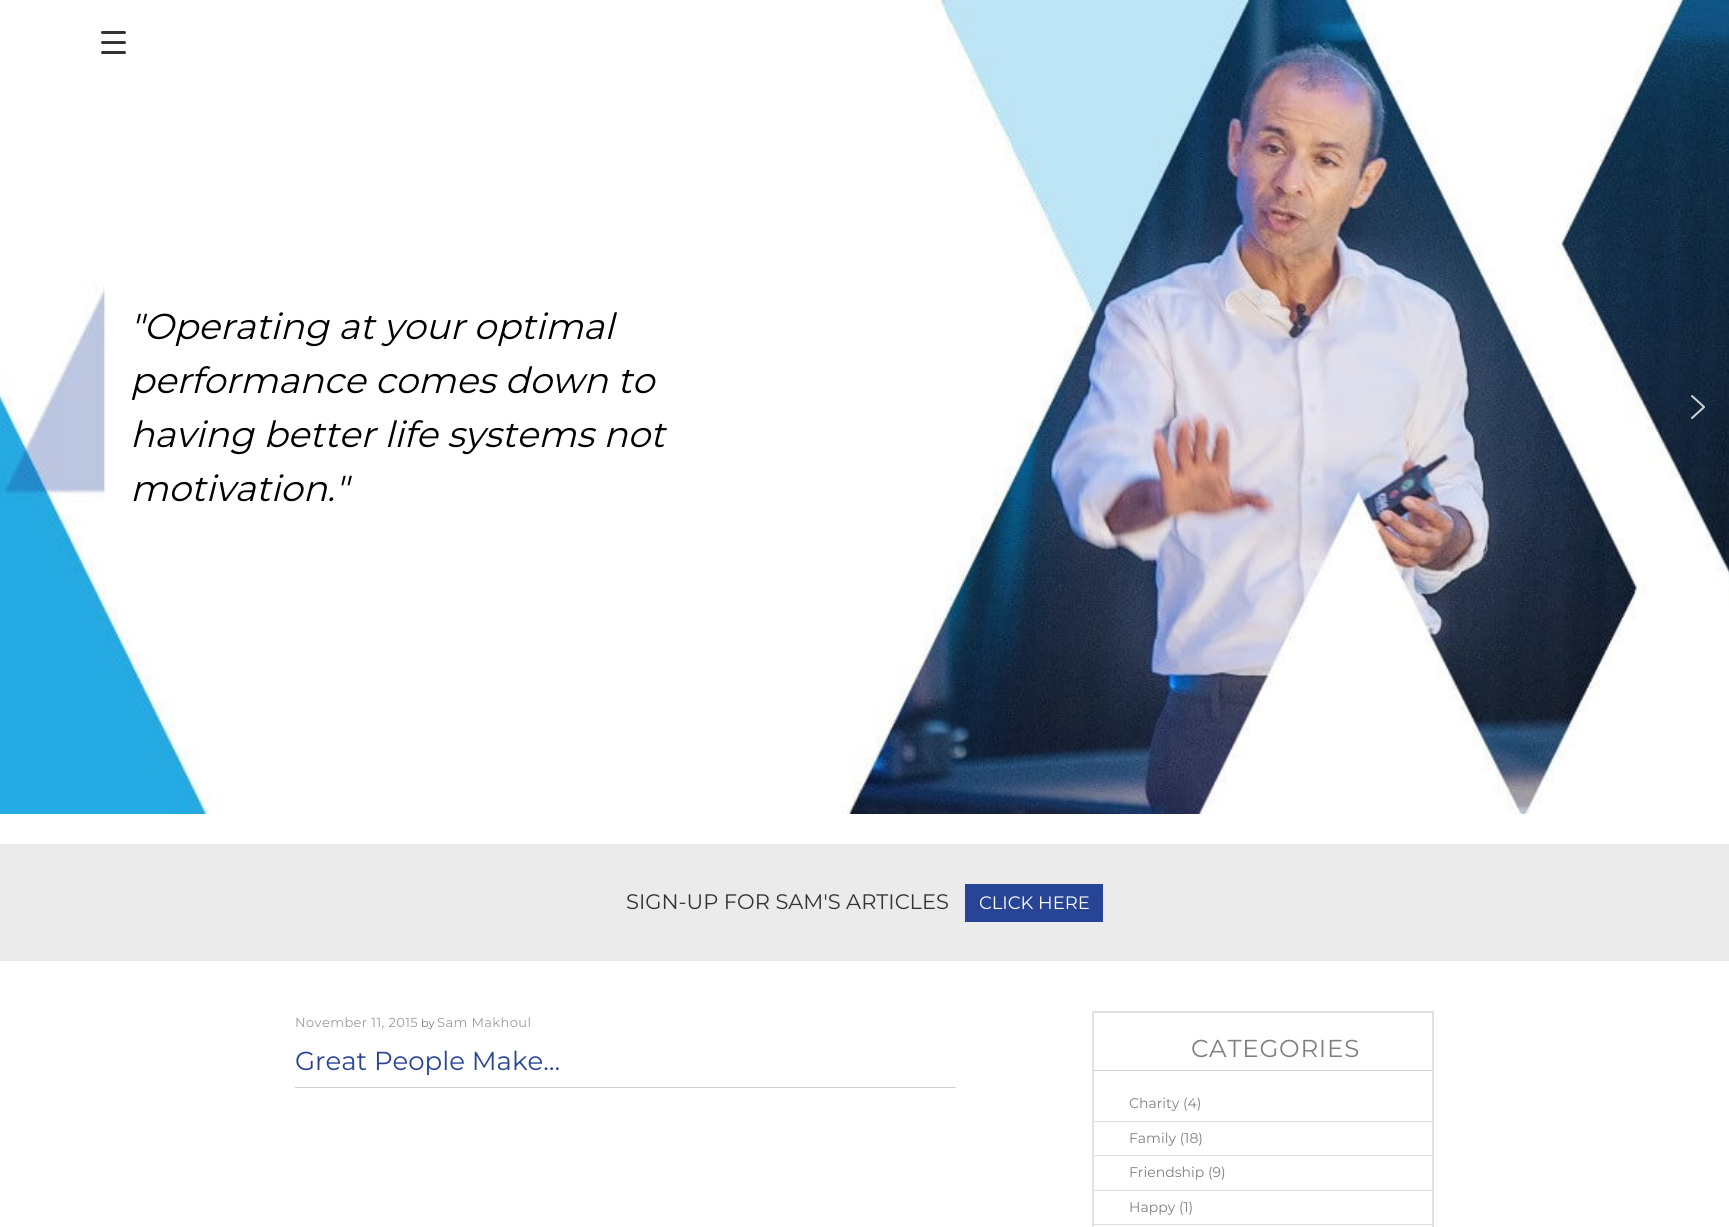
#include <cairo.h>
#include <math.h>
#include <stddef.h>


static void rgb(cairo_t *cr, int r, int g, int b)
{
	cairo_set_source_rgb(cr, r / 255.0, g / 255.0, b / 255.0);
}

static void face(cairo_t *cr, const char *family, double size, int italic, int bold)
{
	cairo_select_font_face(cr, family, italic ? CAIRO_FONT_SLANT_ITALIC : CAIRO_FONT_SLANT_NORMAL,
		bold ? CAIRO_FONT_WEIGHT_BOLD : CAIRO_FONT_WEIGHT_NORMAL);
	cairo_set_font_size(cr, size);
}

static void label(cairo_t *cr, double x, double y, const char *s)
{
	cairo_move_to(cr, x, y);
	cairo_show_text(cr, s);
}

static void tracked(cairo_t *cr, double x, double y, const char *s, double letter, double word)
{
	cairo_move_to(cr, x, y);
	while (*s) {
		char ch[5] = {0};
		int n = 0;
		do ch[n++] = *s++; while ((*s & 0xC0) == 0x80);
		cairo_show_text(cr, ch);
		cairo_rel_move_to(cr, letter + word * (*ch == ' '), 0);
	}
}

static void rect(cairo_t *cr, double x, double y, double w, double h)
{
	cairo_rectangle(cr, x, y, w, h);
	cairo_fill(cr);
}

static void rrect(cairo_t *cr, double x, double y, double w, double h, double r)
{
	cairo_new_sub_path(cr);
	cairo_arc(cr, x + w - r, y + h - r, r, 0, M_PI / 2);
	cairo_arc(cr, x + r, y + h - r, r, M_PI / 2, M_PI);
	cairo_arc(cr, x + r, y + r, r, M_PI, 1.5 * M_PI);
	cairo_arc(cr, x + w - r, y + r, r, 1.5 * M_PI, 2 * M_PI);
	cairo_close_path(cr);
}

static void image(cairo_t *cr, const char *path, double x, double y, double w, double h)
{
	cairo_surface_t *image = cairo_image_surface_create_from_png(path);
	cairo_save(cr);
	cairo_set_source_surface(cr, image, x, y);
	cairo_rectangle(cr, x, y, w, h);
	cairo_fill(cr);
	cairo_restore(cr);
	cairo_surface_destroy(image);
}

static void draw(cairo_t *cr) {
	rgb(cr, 255, 255, 255);
	cairo_paint(cr);
	image(cr, "image0.png", 0, 0, 1729, 814);
	rgb(cr, 51, 51, 51);
	rrect(cr, 101, 41, 25, 3, 1.5);
	cairo_fill(cr);
	rrect(cr, 101, 31, 25, 3, 1.5);
	cairo_fill(cr);
	rrect(cr, 101, 51, 25, 3, 1.5);
	cairo_fill(cr);
	face(cr, "Montserrat", 36, 1, 0);
	rgb(cr, 0, 0, 0);
	label(cr, 130, 339, "\"Operating at your optimal");
	label(cr, 130, 393, "performance comes down to");
	label(cr, 130, 447, "having better life systems not");
	label(cr, 130, 501, "motivation.\"");
	image(cr, "image1.png", 1691, 395, 14, 24);
	rgb(cr, 235, 235, 235);
	rect(cr, 0, 844, 1729, 117);
	face(cr, "Montserrat", 21, 0, 0);
	rgb(cr, 51, 51, 51);
	label(cr, 626, 909, "SIGN-UP FOR SAM'S ARTICLES");
	rgb(cr, 40, 68, 149);
	rect(cr, 965, 884, 138, 38);
	face(cr, "Montserrat", 18, 0, 0);
	rgb(cr, 255, 255, 255);
	label(cr, 979, 909, "CLICK HERE");
	face(cr, "Montserrat", 13, 0, 0);
	rgb(cr, 153, 153, 153);
	tracked(cr, 295, 1027, "November 11, 2015", 0.4, 0);
	face(cr, "Montserrat", 11, 0, 0);
	rgb(cr, 118, 118, 118);
	label(cr, 421, 1027, "by");
	face(cr, "Montserrat", 13, 0, 0);
	rgb(cr, 153, 153, 153);
	tracked(cr, 437, 1027, "Sam Makhoul", 0.4, 0);
	rgb(cr, 208, 208, 208);
	rect(cr, 295, 1087, 661, 1);
	face(cr, "Montserrat", 26, 0, 0);
	rgb(cr, 40, 68, 149);
	label(cr, 295, 1070, "Great People Make…");
	cairo_rectangle(cr, 1093, 1012, 340, 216);
	rgb(cr, 224, 224, 224);
	cairo_stroke(cr);
	rgb(cr, 208, 208, 208);
	rect(cr, 1094, 1070, 338, 1);
	face(cr, "Montserrat", 24.5, 0, 0);
	rgb(cr, 128, 128, 128);
	tracked(cr, 1191, 1057, "CATEGORIES", 0.75, 0);
	rgb(cr, 221, 221, 221);
	rect(cr, 1094, 1121, 338, 1);
	face(cr, "Montserrat", 14, 0, 0);
	rgb(cr, 128, 128, 128);
	label(cr, 1129, 1108, "Charity (4)");
	rgb(cr, 221, 221, 221);
	rect(cr, 1094, 1155, 338, 1);
	rgb(cr, 128, 128, 128);
	label(cr, 1129, 1143, "Family (18)");
	rgb(cr, 221, 221, 221);
	rect(cr, 1094, 1190, 338, 1);
	rgb(cr, 128, 128, 128);
	label(cr, 1129, 1177, "Friendship (9)");
	rgb(cr, 221, 221, 221);
	rect(cr, 1094, 1224, 338, 1);
	rgb(cr, 128, 128, 128);
	label(cr, 1129, 1212, "Happy (1)");
}

int main(void) {
	cairo_surface_t *surface = cairo_image_surface_create(CAIRO_FORMAT_RGB24, 1729, 1227);
	cairo_t *cr = cairo_create(surface);
	cairo_font_options_t *options = cairo_font_options_create();
	cairo_font_options_set_hint_metrics(options, CAIRO_HINT_METRICS_OFF);
	cairo_font_options_set_hint_style(options, CAIRO_HINT_STYLE_NONE);
	cairo_set_font_options(cr, options);
	cairo_set_miter_limit(cr, 4);
	draw(cr);
	cairo_surface_write_to_png(surface, "render.png");
	cairo_font_options_destroy(options);
	cairo_destroy(cr);
	cairo_surface_destroy(surface);
	return 0;
}
